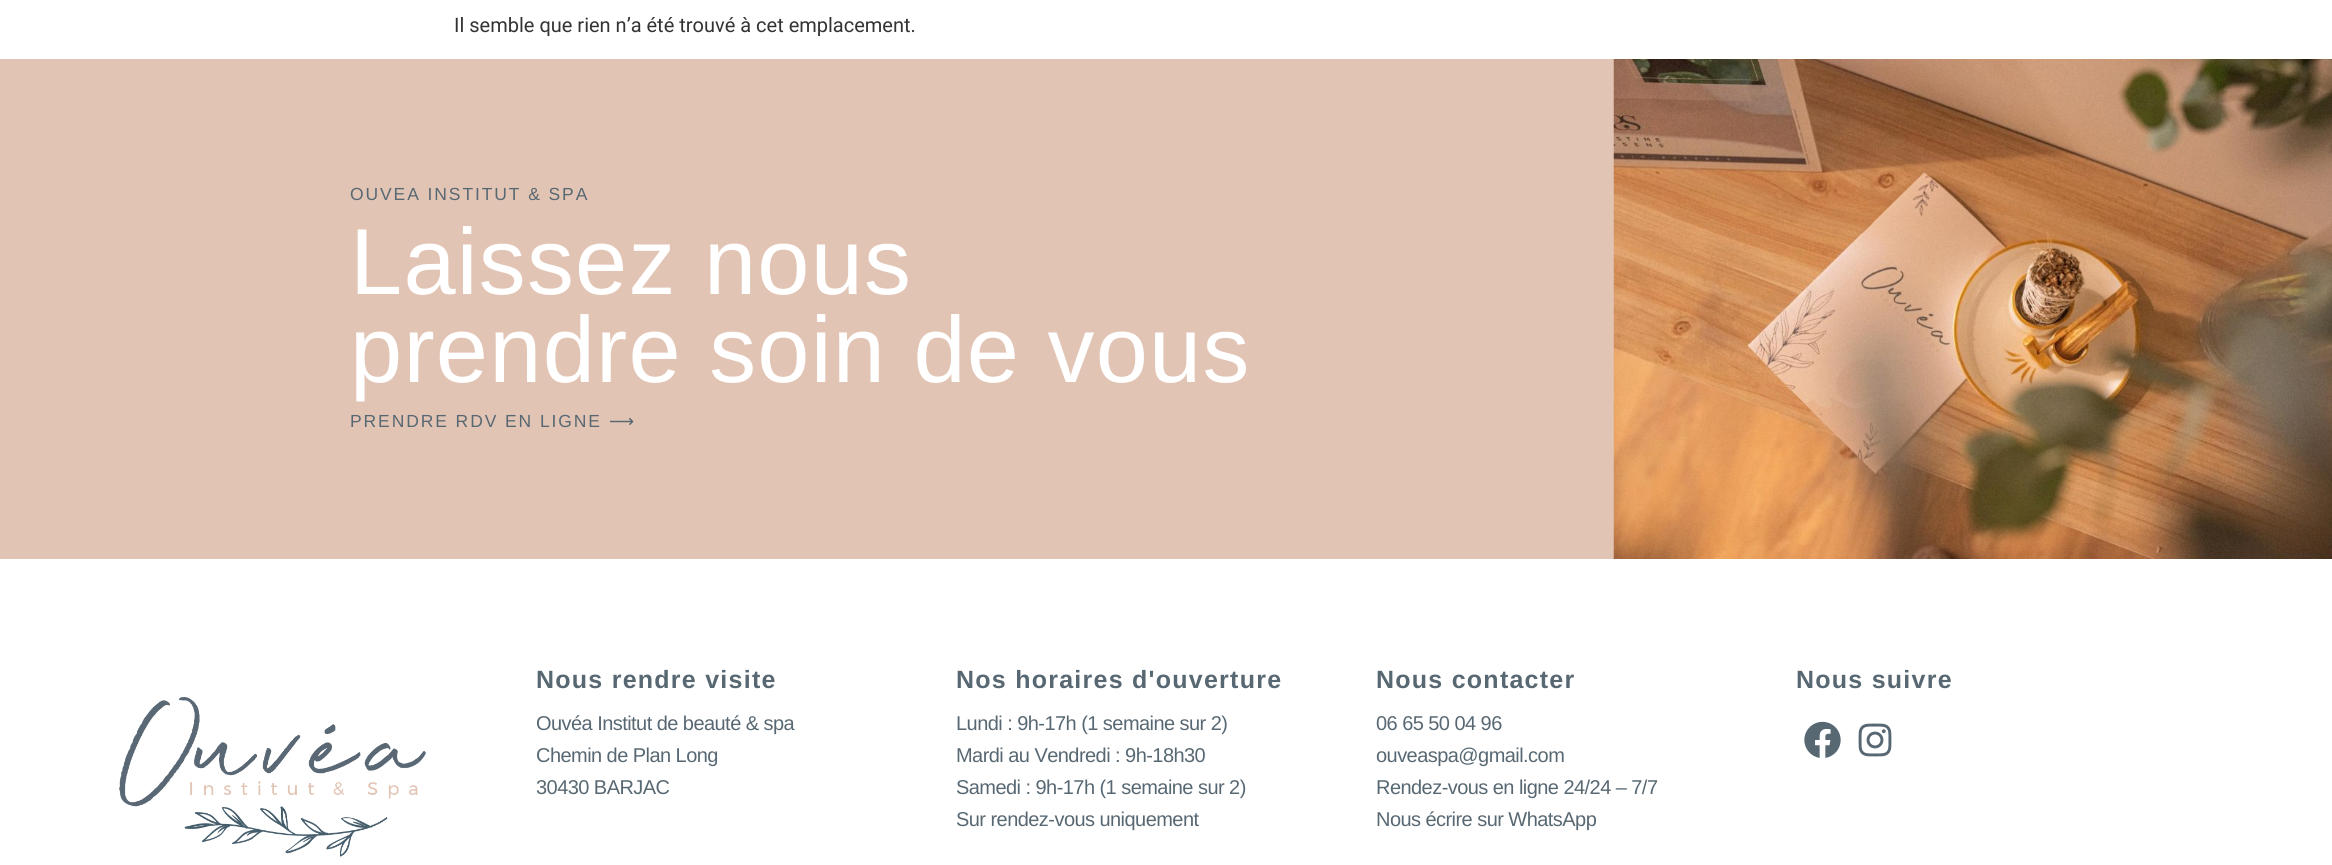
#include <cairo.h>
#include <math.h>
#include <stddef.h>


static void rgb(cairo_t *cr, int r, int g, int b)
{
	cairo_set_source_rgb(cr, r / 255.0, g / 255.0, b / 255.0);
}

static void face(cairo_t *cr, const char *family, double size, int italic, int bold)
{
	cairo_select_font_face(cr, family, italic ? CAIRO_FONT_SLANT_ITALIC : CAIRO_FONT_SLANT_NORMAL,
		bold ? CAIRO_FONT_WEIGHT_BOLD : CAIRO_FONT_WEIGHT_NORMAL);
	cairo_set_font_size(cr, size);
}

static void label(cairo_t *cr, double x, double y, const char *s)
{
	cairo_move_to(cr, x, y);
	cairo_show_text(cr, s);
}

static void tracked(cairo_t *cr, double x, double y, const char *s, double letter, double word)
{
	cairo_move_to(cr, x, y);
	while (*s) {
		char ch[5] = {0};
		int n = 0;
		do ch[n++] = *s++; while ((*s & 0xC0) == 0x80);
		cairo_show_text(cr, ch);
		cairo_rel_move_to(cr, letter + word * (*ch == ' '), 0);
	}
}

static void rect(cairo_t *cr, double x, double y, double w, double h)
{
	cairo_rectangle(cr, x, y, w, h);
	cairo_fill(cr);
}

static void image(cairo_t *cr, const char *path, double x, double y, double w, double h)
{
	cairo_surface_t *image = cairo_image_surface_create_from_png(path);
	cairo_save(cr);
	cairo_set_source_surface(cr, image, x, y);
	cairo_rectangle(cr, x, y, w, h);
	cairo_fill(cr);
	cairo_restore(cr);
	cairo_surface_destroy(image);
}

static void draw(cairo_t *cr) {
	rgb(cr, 255, 255, 255);
	cairo_paint(cr);
	face(cr, "Roboto", 20, 0, 0);
	rgb(cr, 51, 51, 51);
	label(cr, 454, 32, "Il semble que rien n’a été trouvé à cet emplacement.");
	rgb(cr, 226, 196, 180);
	rect(cr, 0, 59, 1614, 500);
	face(cr, "Liberation Sans", 17.5, 0, 0);
	rgb(cr, 88, 104, 115);
	tracked(cr, 350, 200, "OUVEA INSTITUT & SPA", 1.9, 0);
	face(cr, "Liberation Sans", 93.75, 0, 0);
	rgb(cr, 255, 255, 255);
	tracked(cr, 350, 294, "Laissez nous", 1.25, 0);
	tracked(cr, 350, 382, "prendre soin de vous", 1.25, 0);
	face(cr, "Liberation Sans", 17.5, 0, 0);
	rgb(cr, 88, 104, 115);
	tracked(cr, 350, 427, "PRENDRE RDV EN LIGNE", 1.9, 0);
	face(cr, "DejaVu Sans", 17.5, 0, 0);
	tracked(cr, 609, 427, "⟶", 1.9, 0);
	image(cr, "image0.png", 1613, 59, 719, 500);
	image(cr, "image1.png", 119, 697, 307, 160);
	face(cr, "Liberation Sans", 25, 0, 1);
	tracked(cr, 536, 688, "Nous rendre visite", 1.25, 0);
	face(cr, "Liberation Sans", 20, 0, 0);
	tracked(cr, 536, 730, "Ouvéa Institut de beauté & spa", -0.55, 0);
	tracked(cr, 536, 762, "Chemin de Plan Long", -0.55, 0);
	tracked(cr, 536, 794, "30430 BARJAC", -0.55, 0);
	face(cr, "Liberation Sans", 25, 0, 1);
	tracked(cr, 956, 688, "Nos horaires d'ouverture", 1.25, 0);
	face(cr, "Liberation Sans", 20, 0, 0);
	tracked(cr, 956, 730, "Lundi : 9h-17h (1 semaine sur 2)", -0.55, 0);
	tracked(cr, 956, 762, "Mardi au Vendredi : 9h-18h30", -0.55, 0);
	tracked(cr, 956, 794, "Samedi : 9h-17h (1 semaine sur 2)", -0.55, 0);
	tracked(cr, 956, 826, "Sur rendez-vous uniquement", -0.55, 0);
	face(cr, "Liberation Sans", 25, 0, 1);
	tracked(cr, 1376, 688, "Nous contacter", 1.25, 0);
	face(cr, "Liberation Sans", 20, 0, 0);
	tracked(cr, 1376, 730, "06 65 50 04 96", -0.55, 0);
	tracked(cr, 1376, 762, "ouveaspa@gmail.com", -0.55, 0);
	tracked(cr, 1376, 794, "Rendez-vous en ligne 24/24 – 7/7", -0.55, 0);
	tracked(cr, 1376, 826, "Nous écrire sur WhatsApp", -0.55, 0);
	face(cr, "Liberation Sans", 25, 0, 1);
	tracked(cr, 1796, 688, "Nous suivre", 1.25, 0);
	image(cr, "image2.png", 1804, 721, 37, 37);
	image(cr, "image3.png", 1858, 723, 34, 34);
}

int main(void) {
	cairo_surface_t *surface = cairo_image_surface_create(CAIRO_FORMAT_RGB24, 2332, 865);
	cairo_t *cr = cairo_create(surface);
	cairo_font_options_t *options = cairo_font_options_create();
	cairo_font_options_set_hint_metrics(options, CAIRO_HINT_METRICS_OFF);
	cairo_font_options_set_hint_style(options, CAIRO_HINT_STYLE_NONE);
	cairo_set_font_options(cr, options);
	cairo_set_miter_limit(cr, 4);
	draw(cr);
	cairo_surface_write_to_png(surface, "render.png");
	cairo_font_options_destroy(options);
	cairo_destroy(cr);
	cairo_surface_destroy(surface);
	return 0;
}
